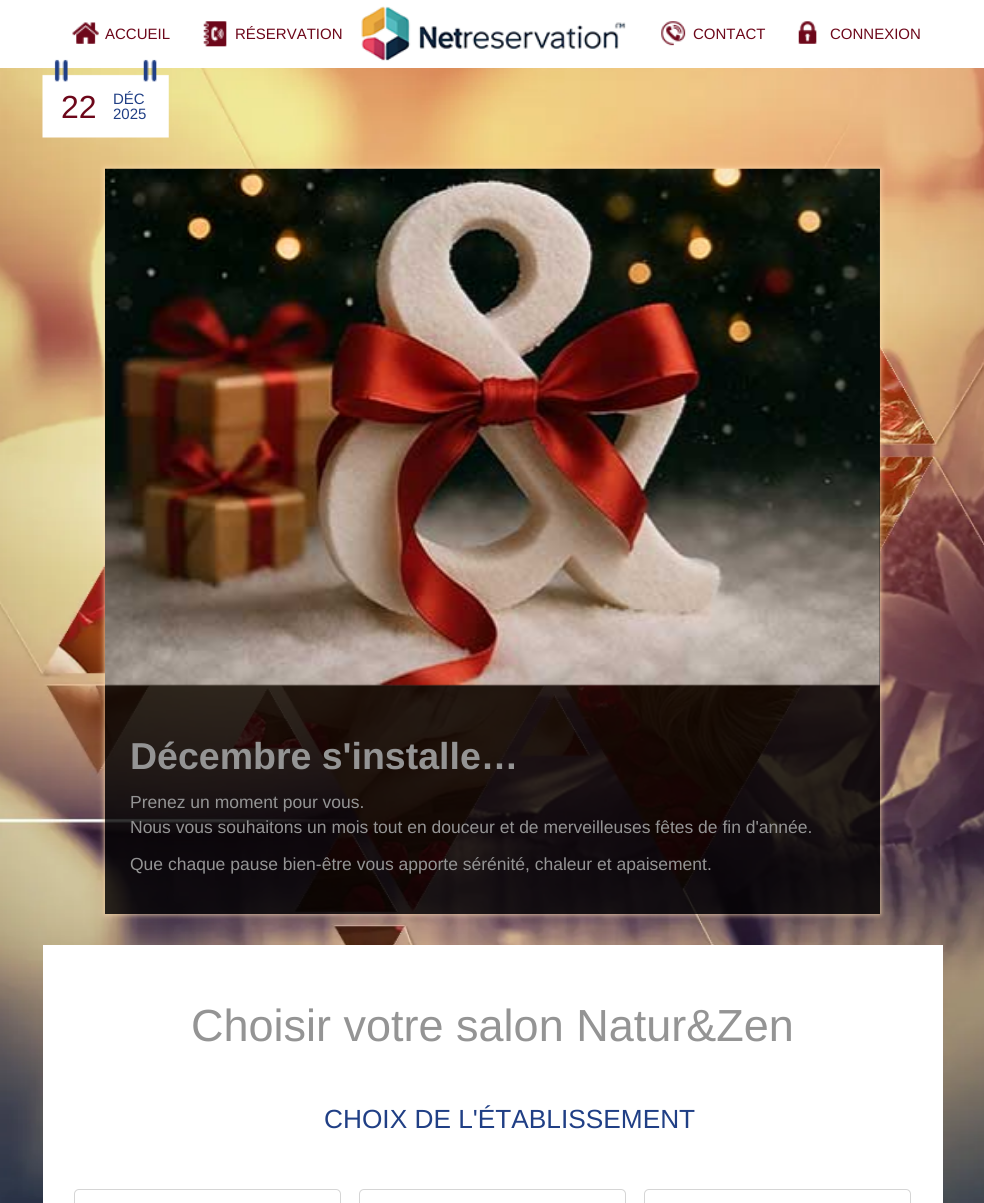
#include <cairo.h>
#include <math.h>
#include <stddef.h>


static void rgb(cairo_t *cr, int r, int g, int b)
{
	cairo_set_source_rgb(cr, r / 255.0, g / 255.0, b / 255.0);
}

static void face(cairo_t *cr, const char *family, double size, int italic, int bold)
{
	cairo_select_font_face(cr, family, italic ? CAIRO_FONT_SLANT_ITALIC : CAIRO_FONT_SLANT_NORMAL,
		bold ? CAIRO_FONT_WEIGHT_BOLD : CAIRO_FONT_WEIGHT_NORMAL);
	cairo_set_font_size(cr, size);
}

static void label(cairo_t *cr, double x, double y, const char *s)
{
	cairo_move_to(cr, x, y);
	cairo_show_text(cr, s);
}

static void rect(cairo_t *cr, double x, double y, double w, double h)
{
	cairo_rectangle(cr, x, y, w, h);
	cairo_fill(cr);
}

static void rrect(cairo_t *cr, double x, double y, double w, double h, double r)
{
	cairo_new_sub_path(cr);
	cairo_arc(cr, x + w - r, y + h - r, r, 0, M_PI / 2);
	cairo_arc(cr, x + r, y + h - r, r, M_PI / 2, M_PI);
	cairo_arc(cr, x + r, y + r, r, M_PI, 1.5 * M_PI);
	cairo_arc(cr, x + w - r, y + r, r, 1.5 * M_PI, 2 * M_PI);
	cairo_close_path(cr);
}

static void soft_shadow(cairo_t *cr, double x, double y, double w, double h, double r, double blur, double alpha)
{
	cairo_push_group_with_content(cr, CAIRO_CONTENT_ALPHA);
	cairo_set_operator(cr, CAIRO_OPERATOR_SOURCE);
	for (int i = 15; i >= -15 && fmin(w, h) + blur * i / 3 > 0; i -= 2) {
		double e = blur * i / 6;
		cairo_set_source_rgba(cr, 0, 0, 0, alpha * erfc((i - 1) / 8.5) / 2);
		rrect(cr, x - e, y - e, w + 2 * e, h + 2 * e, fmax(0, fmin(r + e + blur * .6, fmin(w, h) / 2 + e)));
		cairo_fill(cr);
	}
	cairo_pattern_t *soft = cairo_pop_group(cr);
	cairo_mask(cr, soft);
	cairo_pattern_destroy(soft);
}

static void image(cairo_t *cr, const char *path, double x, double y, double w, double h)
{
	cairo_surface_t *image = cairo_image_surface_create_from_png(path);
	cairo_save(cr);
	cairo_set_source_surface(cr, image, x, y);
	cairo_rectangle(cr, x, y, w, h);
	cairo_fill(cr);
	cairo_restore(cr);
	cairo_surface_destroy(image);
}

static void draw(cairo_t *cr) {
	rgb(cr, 255, 255, 255);
	cairo_paint(cr);
	image(cr, "image0.png", 0, 68, 984, 1135);
	image(cr, "image1.png", 361, 6, 265, 55);
	image(cr, "image2.png", 72, 22, 27, 22);
	face(cr, "Liberation Sans", 15, 0, 0);
	rgb(cr, 109, 7, 26);
	label(cr, 105, 39, "ACCUEIL");
	image(cr, "image3.png", 203, 21, 24, 26);
	label(cr, 235, 39, "RÉSERVATION");
	image(cr, "image4.png", 661, 21, 25, 25);
	label(cr, 693, 39, "CONTACT");
	image(cr, "image5.png", 798, 21, 19, 23);
	label(cr, 830, 39, "CONNEXION");
	image(cr, "image6.png", 42, 59, 127, 79);
	face(cr, "Liberation Sans", 32, 0, 0);
	label(cr, 61, 118, "22");
	face(cr, "Liberation Sans", 15, 0, 0);
	rgb(cr, 32, 63, 133);
	label(cr, 113, 104, "DÉC");
	label(cr, 113, 119, "2025");
	cairo_save(cr);
	cairo_set_fill_rule(cr, CAIRO_FILL_RULE_EVEN_ODD);
	cairo_new_path(cr);
	cairo_move_to(cr, 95, 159);
	cairo_line_to(cr, 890, 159);
	cairo_line_to(cr, 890, 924);
	cairo_line_to(cr, 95, 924);
	cairo_close_path(cr);
	cairo_move_to(cr, 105, 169);
	cairo_line_to(cr, 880, 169);
	cairo_line_to(cr, 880, 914);
	cairo_line_to(cr, 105, 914);
	cairo_close_path(cr);
	cairo_clip(cr);
	rgb(cr, 255, 222, 178);
	soft_shadow(cr, 105, 169, 775, 745, 0, 3, 1);
	cairo_restore(cr);
	cairo_set_source_rgba(cr, 0, 0, 0, 0.8);
	rect(cr, 105, 169, 775, 745);
	image(cr, "image7.png", 105, 168, 775, 518);
	face(cr, "Liberation Sans", 37.5, 0, 1);
	rgb(cr, 148, 148, 148);
	label(cr, 130, 769, "Décembre s'installe…");
	face(cr, "Liberation Sans", 17.5, 0, 0);
	label(cr, 130, 808, "Prenez un moment pour vous.");
	label(cr, 130, 833, "Nous vous souhaitons un mois tout en douceur et de merveilleuses fêtes de fin d'année.");
	label(cr, 130, 870, "Que chaque pause bien-être vous apporte sérénité, chaleur et apaisement.");
	rgb(cr, 255, 255, 255);
	rect(cr, 43, 945, 900, 258);
	face(cr, "Liberation Sans", 45, 0, 0);
	rgb(cr, 148, 148, 148);
	label(cr, 191, 1041, "Choisir votre salon Natur&Zen");
	face(cr, "Liberation Sans", 26.25, 0, 0);
	rgb(cr, 32, 63, 133);
	label(cr, 324, 1128, "CHOIX DE L'ÉTABLISSEMENT");
	rrect(cr, 74.5, 1189.5, 266, 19, 4.5);
	rgb(cr, 213, 213, 213);
	cairo_set_line_width(cr, 1);
	cairo_stroke(cr);
	rrect(cr, 359.5, 1189.5, 266, 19, 4.5);
	cairo_stroke(cr);
	rrect(cr, 644.5, 1189.5, 266, 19, 4.5);
	cairo_stroke(cr);
}

int main(void) {
	cairo_surface_t *surface = cairo_image_surface_create(CAIRO_FORMAT_RGB24, 984, 1203);
	cairo_t *cr = cairo_create(surface);
	cairo_font_options_t *options = cairo_font_options_create();
	cairo_font_options_set_hint_metrics(options, CAIRO_HINT_METRICS_OFF);
	cairo_font_options_set_hint_style(options, CAIRO_HINT_STYLE_NONE);
	cairo_set_font_options(cr, options);
	cairo_set_miter_limit(cr, 4);
	draw(cr);
	cairo_surface_write_to_png(surface, "render.png");
	cairo_font_options_destroy(options);
	cairo_destroy(cr);
	cairo_surface_destroy(surface);
	return 0;
}
